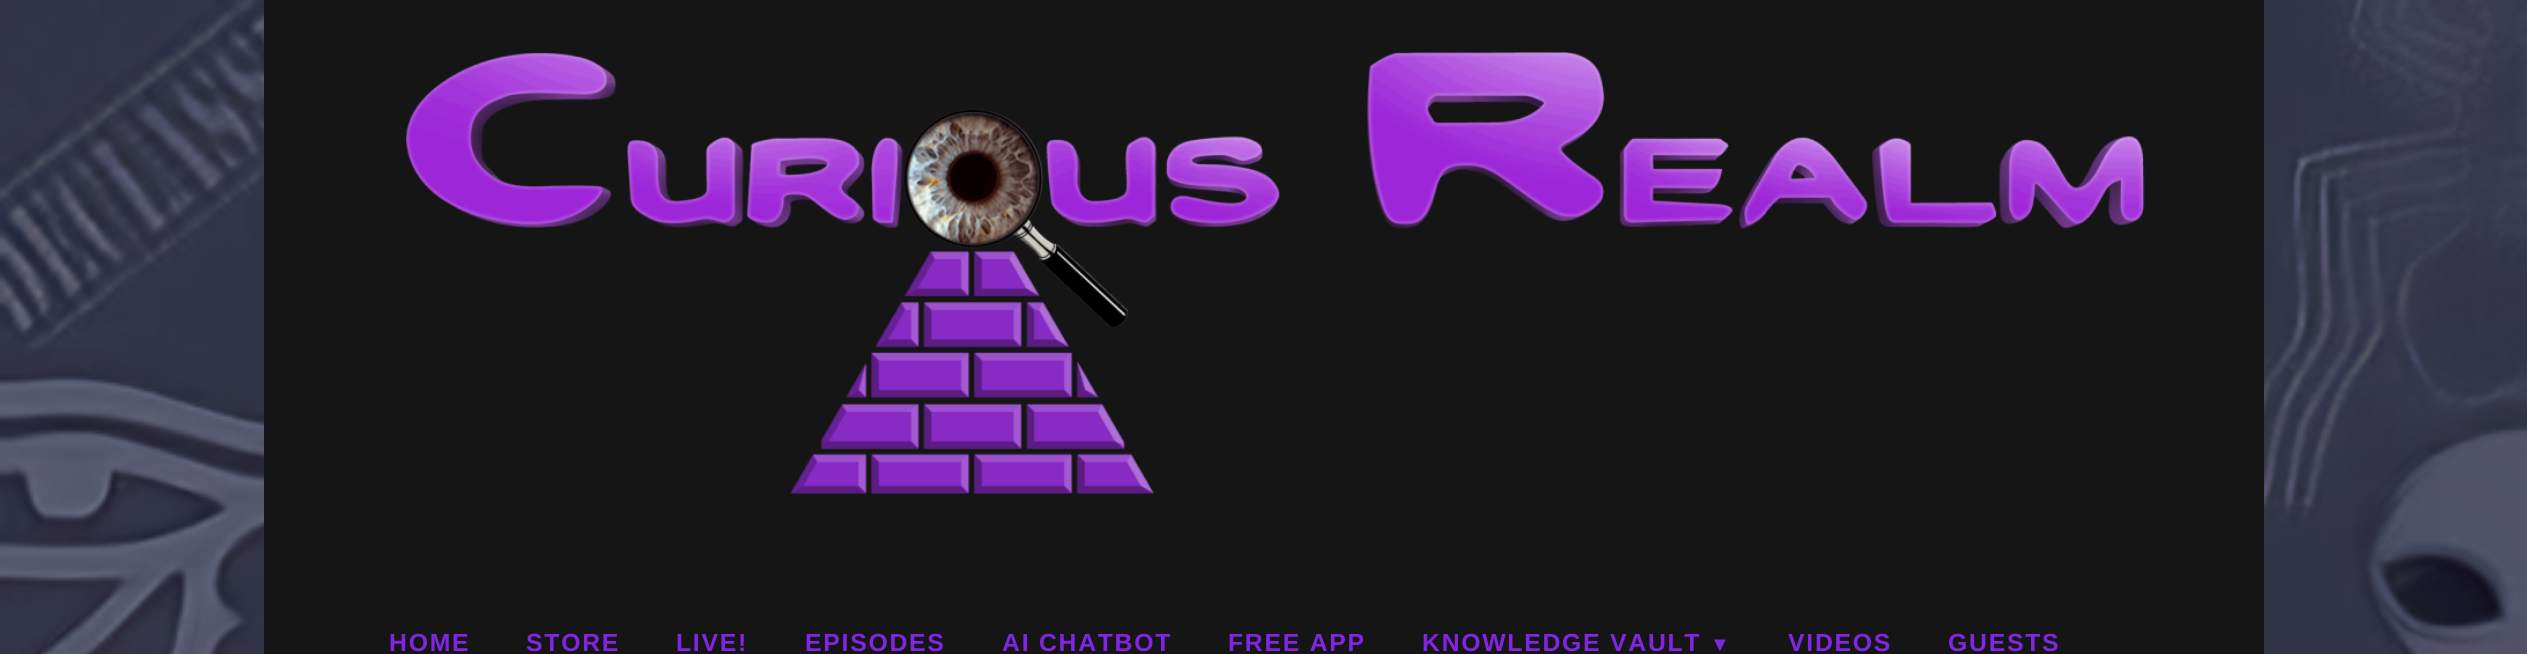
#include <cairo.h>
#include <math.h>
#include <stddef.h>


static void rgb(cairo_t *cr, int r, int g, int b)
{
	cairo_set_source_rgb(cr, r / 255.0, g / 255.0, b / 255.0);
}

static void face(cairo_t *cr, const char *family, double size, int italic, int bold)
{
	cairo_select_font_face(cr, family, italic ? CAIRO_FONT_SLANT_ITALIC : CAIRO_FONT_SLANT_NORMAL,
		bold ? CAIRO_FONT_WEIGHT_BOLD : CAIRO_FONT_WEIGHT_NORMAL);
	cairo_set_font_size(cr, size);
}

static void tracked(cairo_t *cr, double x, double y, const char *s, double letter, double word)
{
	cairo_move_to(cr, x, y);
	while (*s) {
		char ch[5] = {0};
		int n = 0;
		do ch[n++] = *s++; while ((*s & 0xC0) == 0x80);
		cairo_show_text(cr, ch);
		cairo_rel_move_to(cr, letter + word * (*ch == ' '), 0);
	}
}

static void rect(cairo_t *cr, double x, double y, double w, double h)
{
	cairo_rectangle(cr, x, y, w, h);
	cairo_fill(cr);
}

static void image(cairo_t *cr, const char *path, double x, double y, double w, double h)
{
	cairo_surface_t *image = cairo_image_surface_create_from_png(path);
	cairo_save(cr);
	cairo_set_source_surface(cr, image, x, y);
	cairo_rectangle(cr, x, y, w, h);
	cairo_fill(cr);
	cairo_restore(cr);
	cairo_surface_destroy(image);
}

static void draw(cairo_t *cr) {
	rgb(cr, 255, 255, 255);
	cairo_paint(cr);
	image(cr, "image0.png", 0, 0, 2527, 654);
	rgb(cr, 21, 21, 21);
	rect(cr, 264, 0, 2000, 654);
	image(cr, "image1.png", 406, 52, 1739, 442);
	face(cr, "Liberation Sans", 24.75, 0, 1);
	rgb(cr, 130, 36, 227);
	tracked(cr, 389, 651, "HOME", 1.75, 0);
	tracked(cr, 526, 651, "STORE", 1.75, 0);
	tracked(cr, 676, 651, "LIVE!", 1.75, 0);
	tracked(cr, 805, 651, "EPISODES", 1.75, 0);
	tracked(cr, 1002, 651, "AI CHATBOT", 1.75, 0);
	tracked(cr, 1228, 651, "FREE APP", 1.75, 0);
	tracked(cr, 1422, 651, "KNOWLEDGE VAULT", 1.75, 0);
	face(cr, "Liberation Serif", 20, 0, 0);
	tracked(cr, 1710, 651, "▼", 1.75, 0);
	face(cr, "Liberation Sans", 24.75, 0, 1);
	tracked(cr, 1788, 651, "VIDEOS", 1.75, 0);
	tracked(cr, 1948, 651, "GUESTS", 1.75, 0);
}

int main(void) {
	cairo_surface_t *surface = cairo_image_surface_create(CAIRO_FORMAT_RGB24, 2527, 654);
	cairo_t *cr = cairo_create(surface);
	cairo_font_options_t *options = cairo_font_options_create();
	cairo_font_options_set_hint_metrics(options, CAIRO_HINT_METRICS_OFF);
	cairo_font_options_set_hint_style(options, CAIRO_HINT_STYLE_NONE);
	cairo_set_font_options(cr, options);
	cairo_set_miter_limit(cr, 4);
	draw(cr);
	cairo_surface_write_to_png(surface, "render.png");
	cairo_font_options_destroy(options);
	cairo_destroy(cr);
	cairo_surface_destroy(surface);
	return 0;
}
